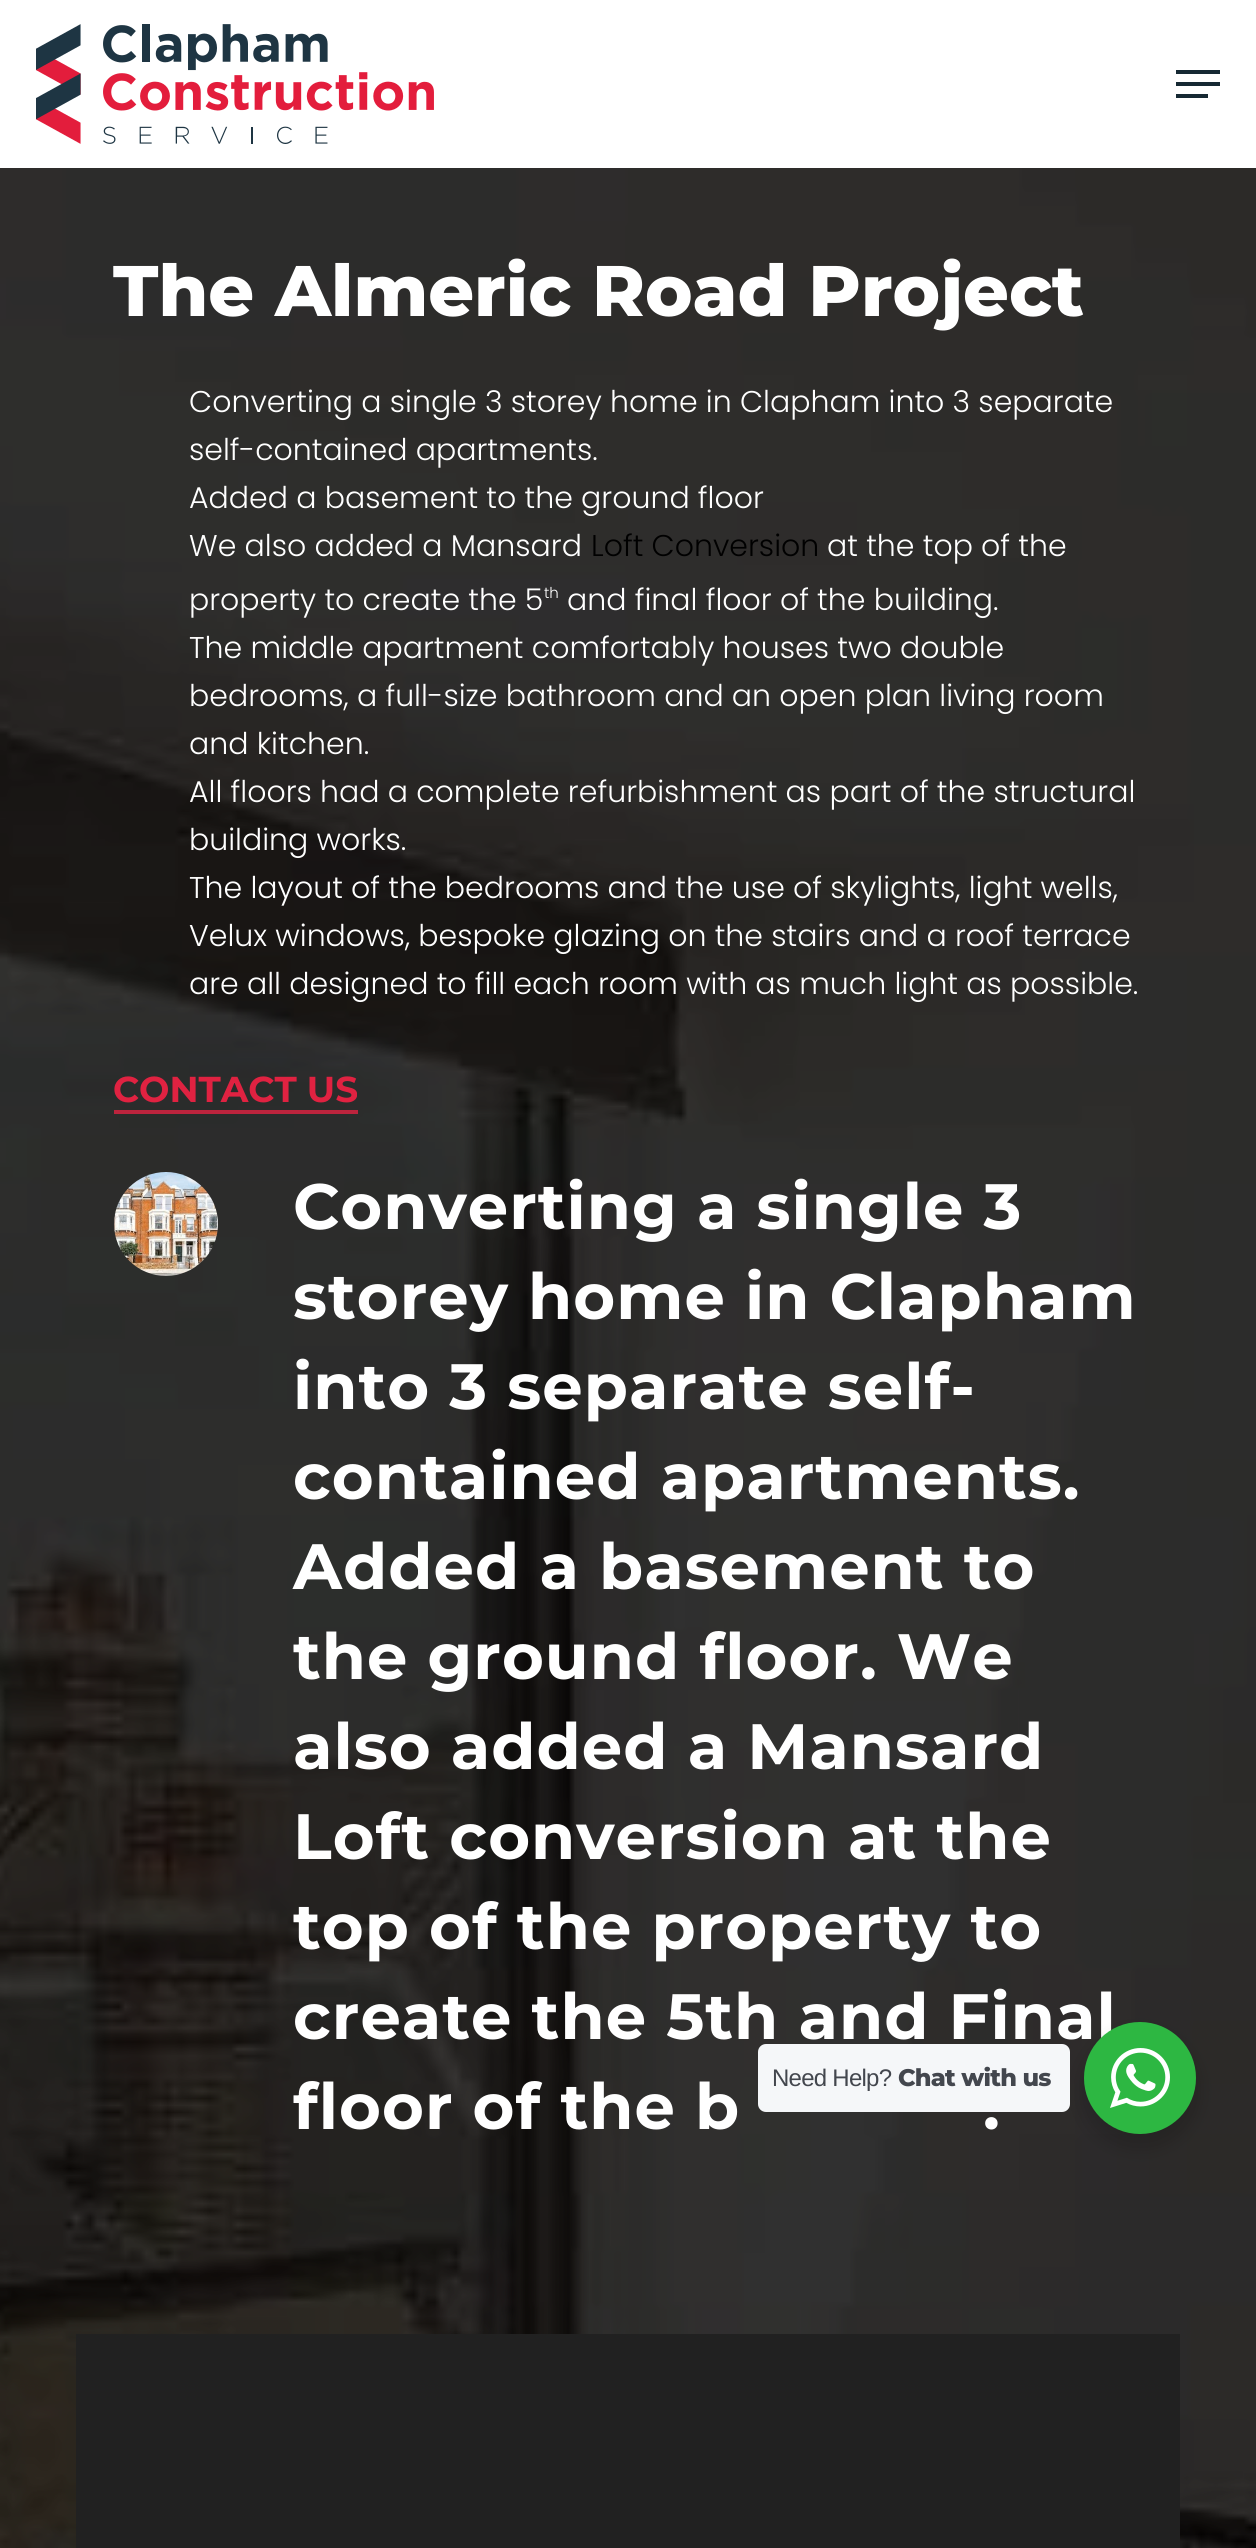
#include <cairo.h>
#include <math.h>
#include <stddef.h>


static void rgb(cairo_t *cr, int r, int g, int b)
{
	cairo_set_source_rgb(cr, r / 255.0, g / 255.0, b / 255.0);
}

static void face(cairo_t *cr, const char *family, double size, int italic, int bold)
{
	cairo_select_font_face(cr, family, italic ? CAIRO_FONT_SLANT_ITALIC : CAIRO_FONT_SLANT_NORMAL,
		bold ? CAIRO_FONT_WEIGHT_BOLD : CAIRO_FONT_WEIGHT_NORMAL);
	cairo_set_font_size(cr, size);
}

static void label(cairo_t *cr, double x, double y, const char *s)
{
	cairo_move_to(cr, x, y);
	cairo_show_text(cr, s);
}

static void tracked(cairo_t *cr, double x, double y, const char *s, double letter, double word)
{
	cairo_move_to(cr, x, y);
	while (*s) {
		char ch[5] = {0};
		int n = 0;
		do ch[n++] = *s++; while ((*s & 0xC0) == 0x80);
		cairo_show_text(cr, ch);
		cairo_rel_move_to(cr, letter + word * (*ch == ' '), 0);
	}
}

static void rect(cairo_t *cr, double x, double y, double w, double h)
{
	cairo_rectangle(cr, x, y, w, h);
	cairo_fill(cr);
}

static void rrect(cairo_t *cr, double x, double y, double w, double h, double r)
{
	cairo_new_sub_path(cr);
	cairo_arc(cr, x + w - r, y + h - r, r, 0, M_PI / 2);
	cairo_arc(cr, x + r, y + h - r, r, M_PI / 2, M_PI);
	cairo_arc(cr, x + r, y + r, r, M_PI, 1.5 * M_PI);
	cairo_arc(cr, x + w - r, y + r, r, 1.5 * M_PI, 2 * M_PI);
	cairo_close_path(cr);
}

static void soft_shadow(cairo_t *cr, double x, double y, double w, double h, double r, double blur, double alpha)
{
	cairo_push_group_with_content(cr, CAIRO_CONTENT_ALPHA);
	cairo_set_operator(cr, CAIRO_OPERATOR_SOURCE);
	for (int i = 15; i >= -15 && fmin(w, h) + blur * i / 3 > 0; i -= 2) {
		double e = blur * i / 6;
		cairo_set_source_rgba(cr, 0, 0, 0, alpha * erfc((i - 1) / 8.5) / 2);
		rrect(cr, x - e, y - e, w + 2 * e, h + 2 * e, fmax(0, fmin(r + e + blur * .6, fmin(w, h) / 2 + e)));
		cairo_fill(cr);
	}
	cairo_pattern_t *soft = cairo_pop_group(cr);
	cairo_mask(cr, soft);
	cairo_pattern_destroy(soft);
}

static void image(cairo_t *cr, const char *path, double x, double y, double w, double h)
{
	cairo_surface_t *image = cairo_image_surface_create_from_png(path);
	cairo_save(cr);
	cairo_set_source_surface(cr, image, x, y);
	cairo_rectangle(cr, x, y, w, h);
	cairo_fill(cr);
	cairo_restore(cr);
	cairo_surface_destroy(image);
}

static void draw(cairo_t *cr) {
	rgb(cr, 255, 255, 255);
	cairo_paint(cr);
	image(cr, "image0.png", 36, 24, 398, 120);
	rgb(cr, 22, 41, 51);
	rect(cr, 1176, 70, 44, 4);
	rect(cr, 1176, 94, 32, 4);
	rect(cr, 1176, 82, 44, 4);
	image(cr, "image1.png", 0, 168, 1256, 2380);
	face(cr, "Montserrat Thin", 71.5, 0, 0);
	rgb(cr, 255, 255, 255);
	label(cr, 113, 316, "The Almeric Road Project");
	face(cr, "Poppins Light", 30, 0, 0);
	label(cr, 189, 412, "Converting a single 3 storey home in Clapham into 3 separate");
	label(cr, 189, 460, "self-contained apartments.");
	label(cr, 189, 508, "Added a basement to the ground floor");
	label(cr, 189, 556, "We also added a Mansard");
	rgb(cr, 0, 0, 0);
	label(cr, 591, 556, "Loft Conversion");
	rgb(cr, 255, 255, 255);
	label(cr, 827, 556, "at the top of the");
	label(cr, 189, 610, "property to create the 5");
	face(cr, "Poppins Light", 15, 0, 0);
	label(cr, 544, 598, "th");
	face(cr, "Poppins Light", 30, 0, 0);
	label(cr, 567, 610, "and final floor of the building.");
	label(cr, 189, 658, "The middle apartment comfortably houses two double");
	label(cr, 189, 706, "bedrooms, a full-size bathroom and an open plan living room");
	label(cr, 189, 754, "and kitchen.");
	label(cr, 189, 802, "All floors had a complete refurbishment as part of the structural");
	label(cr, 189, 850, "building works.");
	label(cr, 189, 898, "The layout of the bedrooms and the use of skylights, light wells,");
	label(cr, 189, 946, "Velux windows, bespoke glazing on the stairs and a roof terrace");
	label(cr, 189, 994, "are all designed to fill each room with as much light as possible.");
	face(cr, "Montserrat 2 Thin", 36, 0, 0);
	rgb(cr, 224, 34, 65);
	label(cr, 113, 1102, "CONTACT US");
	rgb(cr, 188, 36, 61);
	rect(cr, 114, 1110, 244, 4);
	image(cr, "image2.png", 114, 1172, 104, 104);
	face(cr, "Montserrat 2 Thin", 64, 0, 0);
	rgb(cr, 255, 255, 255);
	tracked(cr, 293, 1229, "Converting a single 3", 1, 0);
	tracked(cr, 293, 1319, "storey home in Clapham", 1, 0);
	tracked(cr, 293, 1409, "into 3 separate self-", 1, 0);
	tracked(cr, 293, 1499, "contained apartments.", 1, 0);
	tracked(cr, 293, 1589, "Added a basement to", 1, 0);
	tracked(cr, 293, 1679, "the ground floor. We", 1, 0);
	tracked(cr, 293, 1769, "also added a Mansard", 1, 0);
	tracked(cr, 293, 1859, "Loft conversion at the", 1, 0);
	tracked(cr, 293, 1949, "top of the property to", 1, 0);
	tracked(cr, 293, 2039, "create the 5th and Final", 1, 0);
	tracked(cr, 293, 2129, "floor of the b", 1, 0);
	tracked(cr, 983, 2129, ".", 1, 0);
	rgb(cr, 33, 33, 33);
	rect(cr, 76, 2334, 1104, 214);
	rgb(cr, 0, 0, 0);
	soft_shadow(cr, 1080, 2030, 120, 120, 60, 8, 0.14);
	rgb(cr, 245, 247, 249);
	rrect(cr, 758, 2044, 312, 68, 8);
	cairo_fill(cr);
	face(cr, "Liberation Sans", 24, 0, 0);
	rgb(cr, 67, 71, 78);
	tracked(cr, 772, 2086, "Need Help?", -0.75, 0);
	face(cr, "Montserrat Thin", 24, 0, 0);
	tracked(cr, 898, 2086, "Chat with us", -0.75, 0);
	rgb(cr, 45, 183, 66);
	cairo_new_path(cr);
	cairo_arc(cr, 1140, 2078, 56, 0, 2 * M_PI);
	cairo_fill(cr);
	image(cr, "image3.png", 1110, 2048, 60, 60);
}

int main(void) {
	cairo_surface_t *surface = cairo_image_surface_create(CAIRO_FORMAT_RGB24, 1256, 2548);
	cairo_t *cr = cairo_create(surface);
	cairo_font_options_t *options = cairo_font_options_create();
	cairo_font_options_set_hint_metrics(options, CAIRO_HINT_METRICS_OFF);
	cairo_font_options_set_hint_style(options, CAIRO_HINT_STYLE_NONE);
	cairo_set_font_options(cr, options);
	cairo_set_miter_limit(cr, 4);
	draw(cr);
	cairo_surface_write_to_png(surface, "render.png");
	cairo_font_options_destroy(options);
	cairo_destroy(cr);
	cairo_surface_destroy(surface);
	return 0;
}
